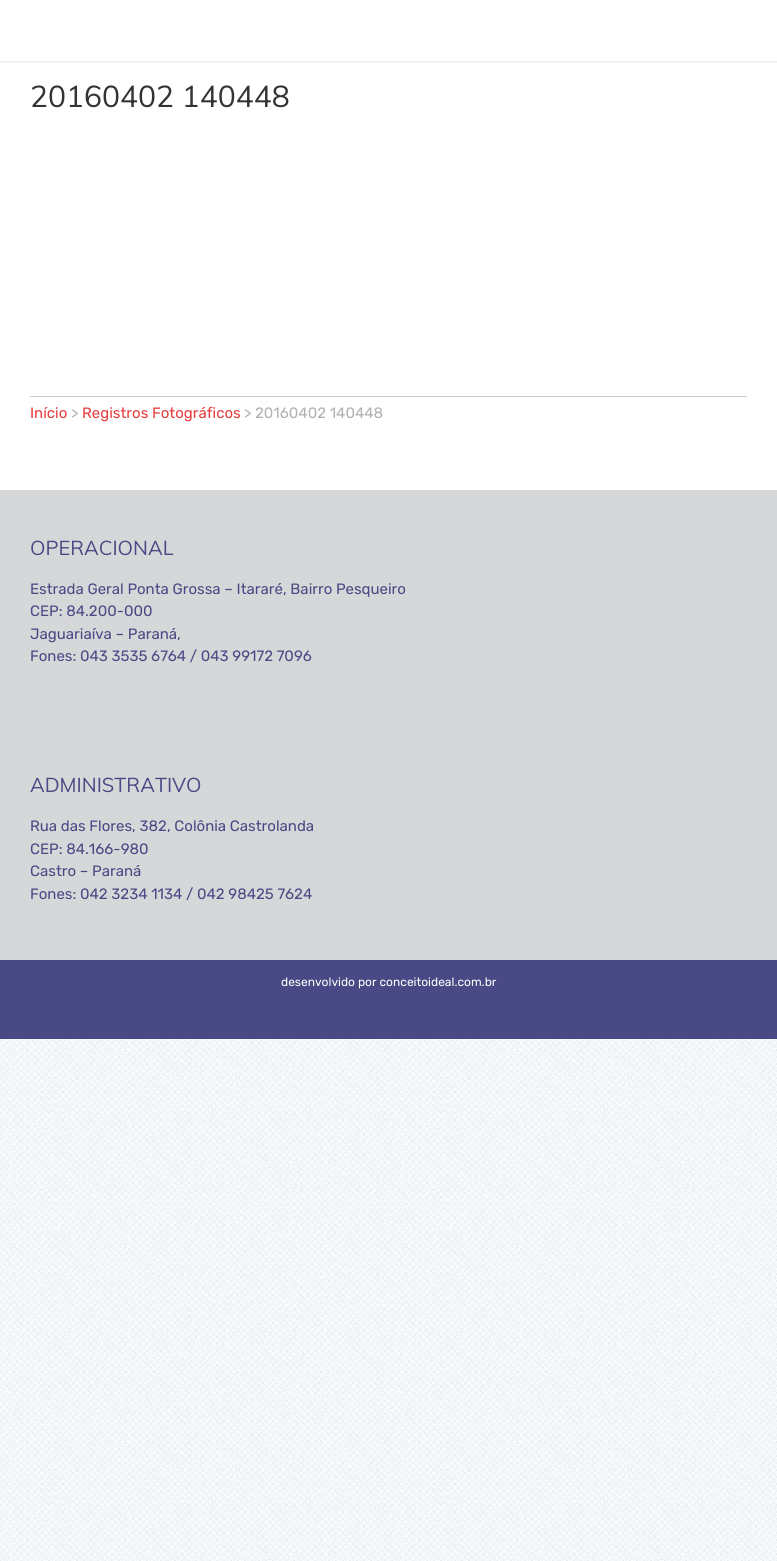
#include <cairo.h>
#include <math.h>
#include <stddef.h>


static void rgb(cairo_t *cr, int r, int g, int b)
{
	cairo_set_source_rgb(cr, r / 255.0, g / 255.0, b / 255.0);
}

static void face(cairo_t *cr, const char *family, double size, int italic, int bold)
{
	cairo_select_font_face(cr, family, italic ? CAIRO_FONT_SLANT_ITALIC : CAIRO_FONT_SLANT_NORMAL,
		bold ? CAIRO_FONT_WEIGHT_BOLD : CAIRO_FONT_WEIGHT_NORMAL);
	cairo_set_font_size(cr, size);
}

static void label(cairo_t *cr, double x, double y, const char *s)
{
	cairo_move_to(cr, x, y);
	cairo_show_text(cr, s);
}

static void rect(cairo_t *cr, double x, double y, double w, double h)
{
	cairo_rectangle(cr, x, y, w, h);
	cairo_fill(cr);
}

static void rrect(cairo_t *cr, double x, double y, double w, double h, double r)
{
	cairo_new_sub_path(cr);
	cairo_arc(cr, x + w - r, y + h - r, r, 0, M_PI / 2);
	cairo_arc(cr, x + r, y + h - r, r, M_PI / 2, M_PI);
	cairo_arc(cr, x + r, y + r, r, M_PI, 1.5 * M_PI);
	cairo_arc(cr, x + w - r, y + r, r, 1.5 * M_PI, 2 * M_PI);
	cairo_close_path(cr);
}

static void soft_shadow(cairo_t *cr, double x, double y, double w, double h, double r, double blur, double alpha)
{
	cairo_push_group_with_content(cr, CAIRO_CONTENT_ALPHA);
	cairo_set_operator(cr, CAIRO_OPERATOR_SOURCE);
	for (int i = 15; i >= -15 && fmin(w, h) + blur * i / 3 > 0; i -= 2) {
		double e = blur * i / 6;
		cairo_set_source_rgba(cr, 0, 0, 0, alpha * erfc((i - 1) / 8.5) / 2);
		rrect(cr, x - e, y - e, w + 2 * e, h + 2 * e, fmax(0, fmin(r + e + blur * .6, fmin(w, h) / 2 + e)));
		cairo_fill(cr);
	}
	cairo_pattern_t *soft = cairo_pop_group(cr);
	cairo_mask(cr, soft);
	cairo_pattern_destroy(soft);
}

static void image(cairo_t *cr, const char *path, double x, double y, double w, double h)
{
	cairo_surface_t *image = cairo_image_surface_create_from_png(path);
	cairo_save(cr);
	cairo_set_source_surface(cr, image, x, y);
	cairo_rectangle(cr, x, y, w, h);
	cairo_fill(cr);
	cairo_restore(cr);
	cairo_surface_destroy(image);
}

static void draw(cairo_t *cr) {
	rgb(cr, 255, 255, 255);
	cairo_paint(cr);
	image(cr, "image0.png", 0, 1039, 777, 522);
	cairo_save(cr);
	cairo_rectangle(cr, 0, 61, 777, 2);
	cairo_clip(cr);
	rgb(cr, 0, 0, 0);
	soft_shadow(cr, 0, 1, 777, 61, 0, 1.5, 0.12);
	cairo_restore(cr);
	face(cr, "Muli", 30, 0, 0);
	rgb(cr, 51, 51, 51);
	label(cr, 30, 107, "20160402 140448");
	rgb(cr, 204, 204, 204);
	rect(cr, 30, 396, 717, 1);
	face(cr, "Rubik Light", 15, 0, 0);
	rgb(cr, 230, 60, 61);
	label(cr, 30, 418, "Início");
	rgb(cr, 177, 177, 177);
	label(cr, 71, 418, ">");
	rgb(cr, 230, 60, 61);
	label(cr, 82, 418, "Registros Fotográficos");
	rgb(cr, 177, 177, 177);
	label(cr, 244, 418, "> 20160402 140448");
	rgb(cr, 214, 215, 216);
	rect(cr, 0, 490, 777, 470);
	face(cr, "Muli", 20, 0, 0);
	rgb(cr, 73, 73, 133);
	label(cr, 30, 555, "OPERACIONAL");
	face(cr, "Rubik Light", 15, 0, 0);
	label(cr, 30, 594, "Estrada Geral Ponta Grossa – Itararé, Bairro Pesqueiro");
	label(cr, 30, 616, "CEP: 84.200-000");
	label(cr, 30, 639, "Jaguariaíva – Paraná,");
	label(cr, 30, 661, "Fones: 043 3535 6764 / 043 99172 7096");
	face(cr, "Muli", 20, 0, 0);
	label(cr, 30, 792, "ADMINISTRATIVO");
	face(cr, "Rubik Light", 15, 0, 0);
	label(cr, 30, 831, "Rua das Flores, 382, Colônia Castrolanda");
	label(cr, 30, 854, "CEP: 84.166-980");
	label(cr, 30, 876, "Castro – Paraná");
	label(cr, 30, 899, "Fones: 042 3234 1134 / 042 98425 7624");
	rect(cr, 0, 960, 777, 79);
	face(cr, "Rubik Light", 12, 0, 0);
	rgb(cr, 255, 255, 255);
	label(cr, 281, 986, "desenvolvido por conceitoideal.com.br");
}

int main(void) {
	cairo_surface_t *surface = cairo_image_surface_create(CAIRO_FORMAT_RGB24, 777, 1561);
	cairo_t *cr = cairo_create(surface);
	cairo_font_options_t *options = cairo_font_options_create();
	cairo_font_options_set_hint_metrics(options, CAIRO_HINT_METRICS_OFF);
	cairo_font_options_set_hint_style(options, CAIRO_HINT_STYLE_NONE);
	cairo_set_font_options(cr, options);
	cairo_set_miter_limit(cr, 4);
	draw(cr);
	cairo_surface_write_to_png(surface, "render.png");
	cairo_font_options_destroy(options);
	cairo_destroy(cr);
	cairo_surface_destroy(surface);
	return 0;
}
